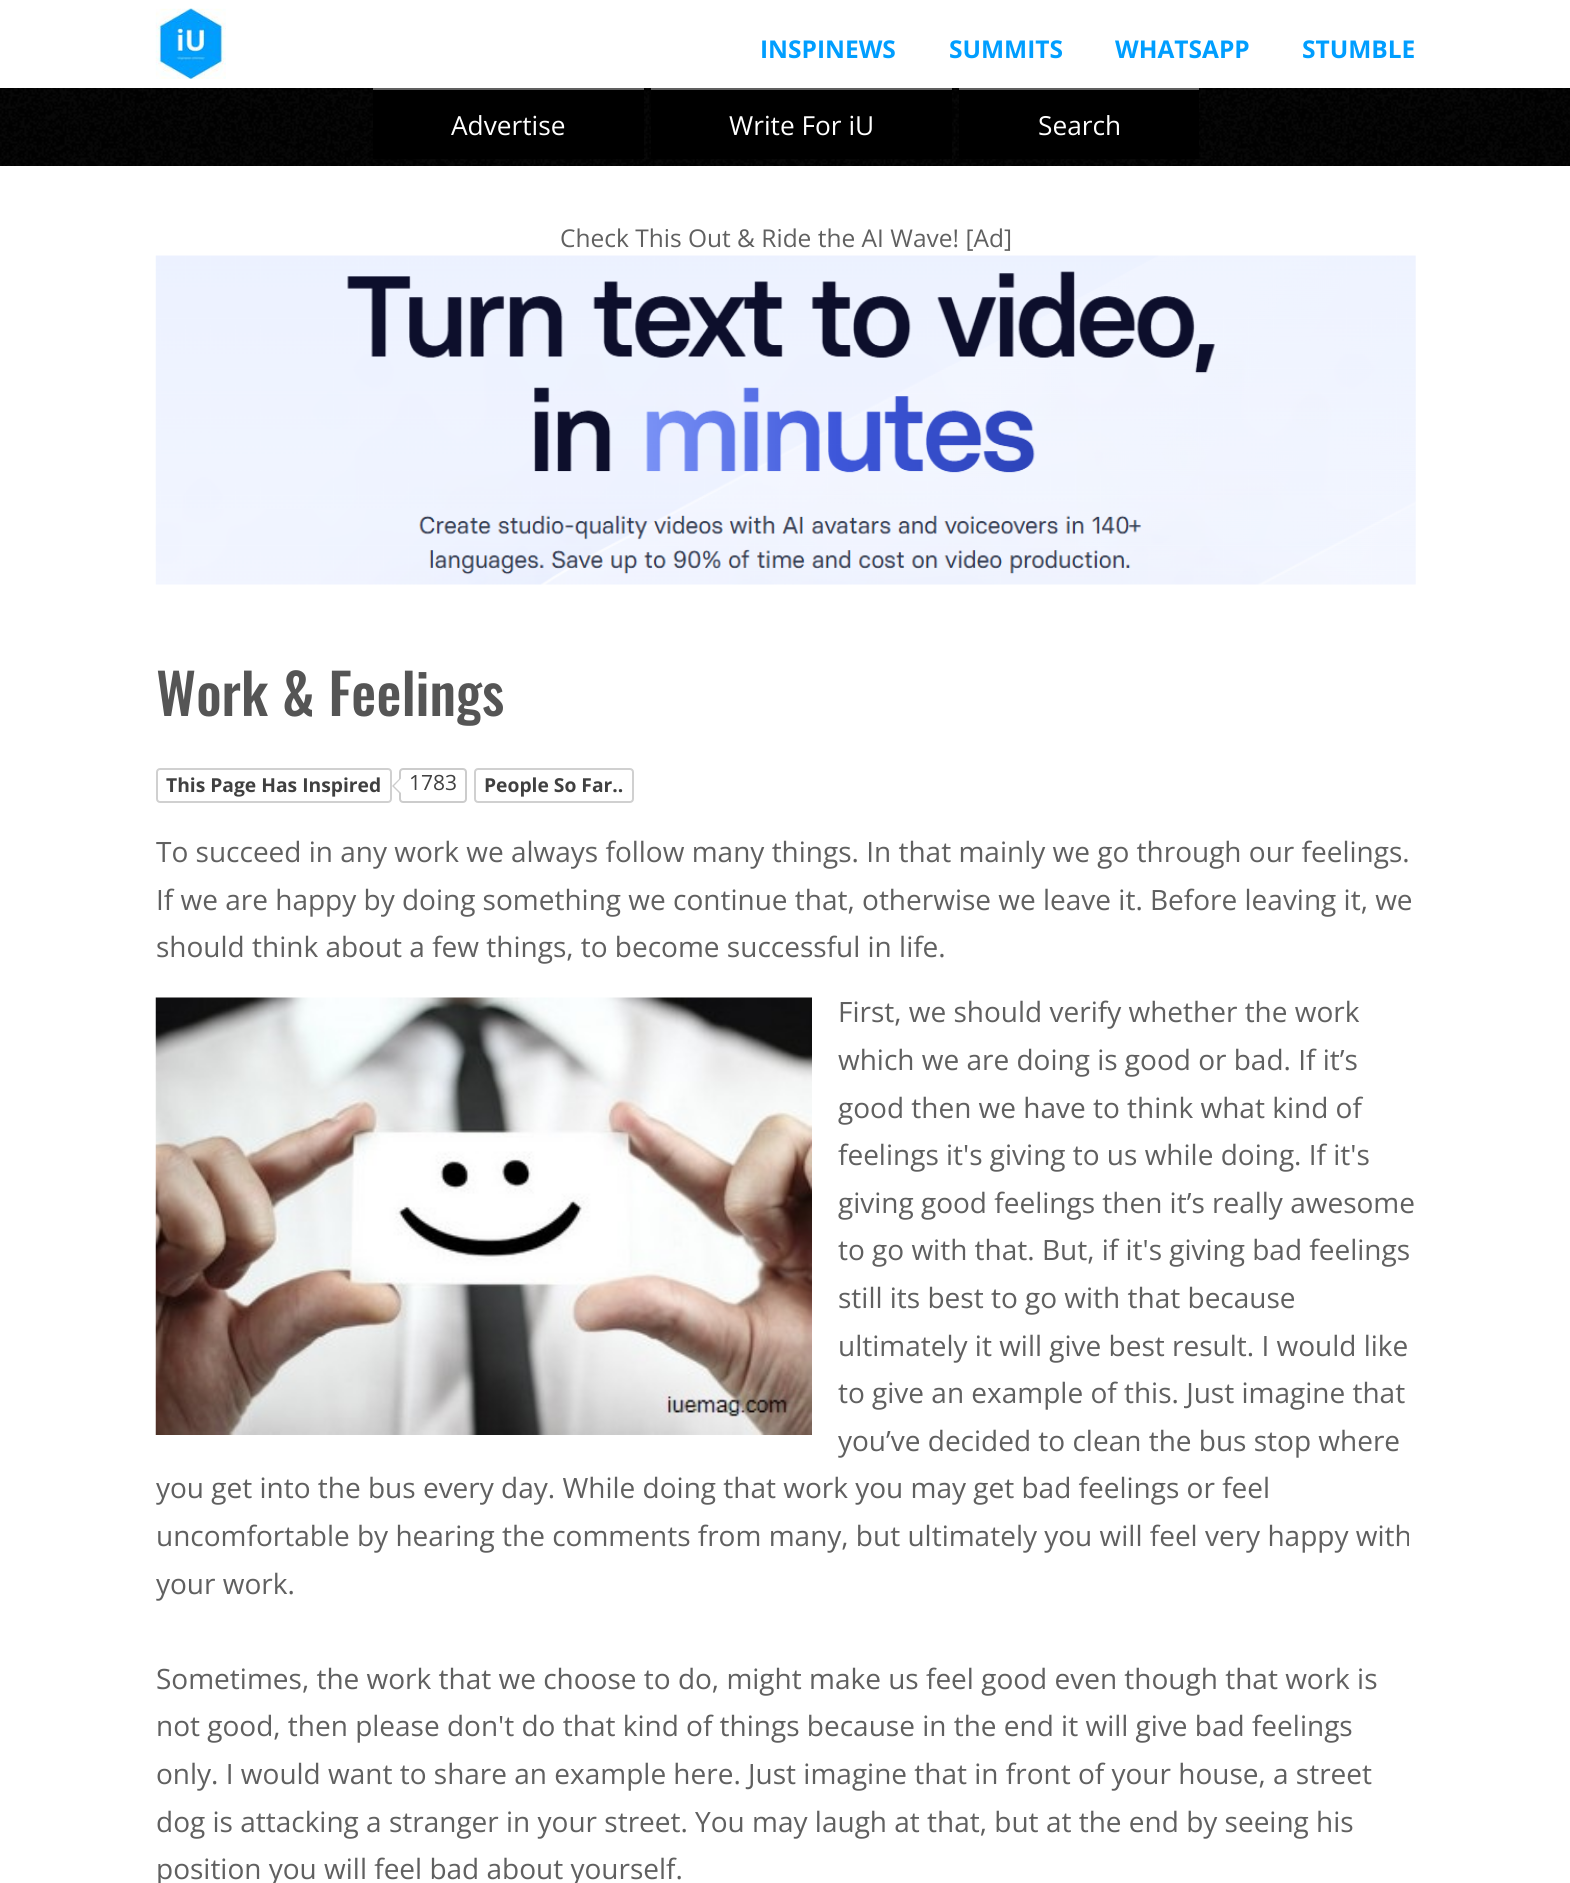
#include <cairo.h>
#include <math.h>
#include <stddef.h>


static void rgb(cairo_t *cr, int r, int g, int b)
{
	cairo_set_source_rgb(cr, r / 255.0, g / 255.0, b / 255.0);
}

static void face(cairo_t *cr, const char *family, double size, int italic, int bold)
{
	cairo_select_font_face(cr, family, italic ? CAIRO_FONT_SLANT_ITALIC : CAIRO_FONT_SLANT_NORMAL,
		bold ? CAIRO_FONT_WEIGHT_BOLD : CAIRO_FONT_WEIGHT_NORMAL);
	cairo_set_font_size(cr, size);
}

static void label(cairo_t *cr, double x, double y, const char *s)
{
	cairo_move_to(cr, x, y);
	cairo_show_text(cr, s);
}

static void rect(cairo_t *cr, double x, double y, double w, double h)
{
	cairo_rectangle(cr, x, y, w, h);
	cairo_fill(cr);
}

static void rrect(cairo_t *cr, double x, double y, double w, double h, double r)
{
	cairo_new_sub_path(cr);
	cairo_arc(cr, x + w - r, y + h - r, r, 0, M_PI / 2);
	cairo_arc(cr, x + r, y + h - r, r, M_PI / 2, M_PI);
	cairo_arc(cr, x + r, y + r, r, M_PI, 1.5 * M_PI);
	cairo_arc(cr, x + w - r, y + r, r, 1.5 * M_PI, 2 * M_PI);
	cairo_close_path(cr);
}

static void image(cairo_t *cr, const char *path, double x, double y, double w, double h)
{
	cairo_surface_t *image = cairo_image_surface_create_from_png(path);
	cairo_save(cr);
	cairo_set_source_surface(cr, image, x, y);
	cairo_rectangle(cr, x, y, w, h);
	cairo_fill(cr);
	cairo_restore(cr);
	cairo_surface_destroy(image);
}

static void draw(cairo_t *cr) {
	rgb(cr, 255, 255, 255);
	cairo_paint(cr);
	image(cr, "image0.png", 155, 8, 71, 71);
	face(cr, "Open Sans", 24.5, 0, 1);
	rgb(cr, 0, 158, 255);
	label(cr, 760, 58, "INSPINEWS");
	label(cr, 949, 58, "SUMMITS");
	label(cr, 1115, 58, "WHATSAPP");
	label(cr, 1302, 58, "STUMBLE");
	rgb(cr, 0, 0, 0);
	rect(cr, 0, 88, 1570, 78);
	image(cr, "image1.png", 0, 88, 1570, 78);
	rect(cr, 373, 90, 271, 69);
	rgb(cr, 96, 96, 96);
	rect(cr, 373, 88, 271, 2);
	face(cr, "Open Sans", 26.25, 0, 0);
	rgb(cr, 255, 255, 255);
	label(cr, 451, 135, "Advertise");
	rgb(cr, 0, 0, 0);
	rect(cr, 651, 90, 301, 69);
	rgb(cr, 96, 96, 96);
	rect(cr, 651, 88, 301, 2);
	rgb(cr, 255, 255, 255);
	label(cr, 729, 135, "Write For iU");
	rgb(cr, 0, 0, 0);
	rect(cr, 959, 90, 240, 69);
	rgb(cr, 96, 96, 96);
	rect(cr, 959, 88, 240, 2);
	rgb(cr, 255, 255, 255);
	label(cr, 1038, 135, "Search");
	face(cr, "Open Sans", 24.5, 0, 0);
	rgb(cr, 96, 96, 96);
	label(cr, 560, 247, "Check This Out & Ride the AI Wave! [Ad]");
	image(cr, "image2.png", 155, 255, 1261, 330);
	face(cr, "Oswald Medium", 56, 0, 0);
	rgb(cr, 85, 85, 85);
	label(cr, 156, 716, "Work & Feelings");
	rrect(cr, 157, 769, 234, 33, 3);
	rgb(cr, 208, 208, 208);
	cairo_stroke(cr);
	face(cr, "Open Sans", 19.25, 0, 1);
	rgb(cr, 64, 64, 64);
	label(cr, 166, 792, "This Page Has Inspired");
	rrect(cr, 400, 769, 66, 33, 3);
	rgb(cr, 204, 204, 204);
	cairo_stroke(cr);
	cairo_new_path(cr);
	cairo_move_to(cr, 399, 779);
	cairo_line_to(cr, 399, 793);
	cairo_line_to(cr, 392, 786);
	cairo_close_path(cr);
	cairo_fill(cr);
	rgb(cr, 255, 255, 255);
	cairo_new_path(cr);
	cairo_move_to(cr, 402.5, 777);
	cairo_line_to(cr, 402.5, 794.5);
	cairo_line_to(cr, 394, 786);
	cairo_close_path(cr);
	cairo_fill(cr);
	face(cr, "Open Sans", 21, 0, 0);
	rgb(cr, 64, 64, 64);
	label(cr, 409, 790, "1783");
	rrect(cr, 475, 769, 158, 33, 3);
	rgb(cr, 208, 208, 208);
	cairo_stroke(cr);
	face(cr, "Open Sans", 19.25, 0, 1);
	rgb(cr, 64, 64, 64);
	label(cr, 484, 792, "People So Far..");
	face(cr, "Open Sans", 28, 0, 0);
	rgb(cr, 96, 96, 96);
	label(cr, 156, 862, "To succeed in any work we always follow many things. In that mainly we go through our feelings.");
	label(cr, 156, 910, "If we are happy by doing something we continue that, otherwise we leave it. Before leaving it, we");
	label(cr, 156, 957, "should think about a few things, to become successful in life.");
	image(cr, "image3.png", 155, 997, 657, 438);
	label(cr, 838, 1022, "First, we should verify whether the work");
	label(cr, 838, 1070, "which we are doing is good or bad. If it’s");
	label(cr, 838, 1118, "good then we have to think what kind of");
	label(cr, 838, 1165, "feelings it's giving to us while doing. If it's");
	label(cr, 838, 1213, "giving good feelings then it’s really awesome");
	label(cr, 838, 1260, "to go with that. But, if it's giving bad feelings");
	label(cr, 838, 1308, "still its best to go with that because");
	label(cr, 838, 1356, "ultimately it will give best result. I would like");
	label(cr, 838, 1403, "to give an example of this. Just imagine that");
	label(cr, 838, 1451, "you’ve decided to clean the bus stop where");
	label(cr, 156, 1498, "you get into the bus every day. While doing that work you may get bad feelings or feel");
	label(cr, 156, 1546, "uncomfortable by hearing the comments from many, but ultimately you will feel very happy with");
	label(cr, 156, 1594, "your work.");
	label(cr, 156, 1689, "Sometimes, the work that we choose to do, might make us feel good even though that work is");
	label(cr, 156, 1736, "not good, then please don't do that kind of things because in the end it will give bad feelings");
	label(cr, 156, 1784, "only. I would want to share an example here. Just imagine that in front of your house, a street");
	label(cr, 156, 1832, "dog is attacking a stranger in your street. You may laugh at that, but at the end by seeing his");
	label(cr, 156, 1879, "position you will feel bad about yourself.");
}

int main(void) {
	cairo_surface_t *surface = cairo_image_surface_create(CAIRO_FORMAT_RGB24, 1570, 1883);
	cairo_t *cr = cairo_create(surface);
	cairo_font_options_t *options = cairo_font_options_create();
	cairo_font_options_set_hint_metrics(options, CAIRO_HINT_METRICS_OFF);
	cairo_font_options_set_hint_style(options, CAIRO_HINT_STYLE_NONE);
	cairo_set_font_options(cr, options);
	cairo_set_miter_limit(cr, 4);
	draw(cr);
	cairo_surface_write_to_png(surface, "render.png");
	cairo_font_options_destroy(options);
	cairo_destroy(cr);
	cairo_surface_destroy(surface);
	return 0;
}
